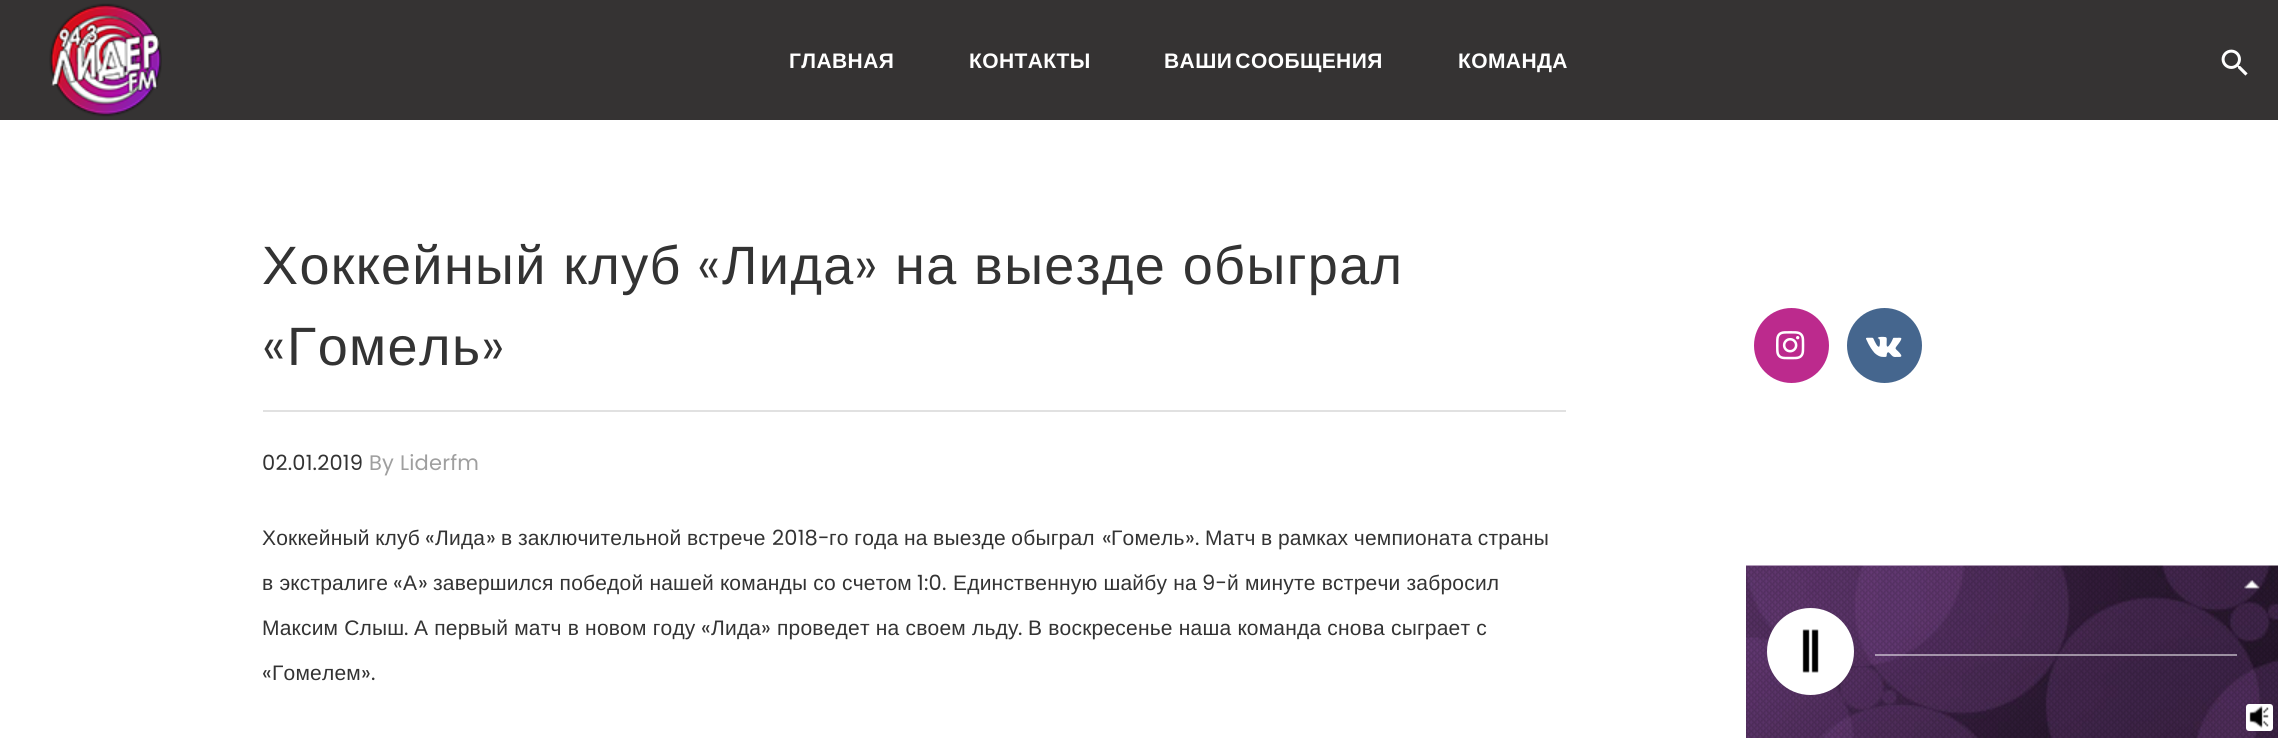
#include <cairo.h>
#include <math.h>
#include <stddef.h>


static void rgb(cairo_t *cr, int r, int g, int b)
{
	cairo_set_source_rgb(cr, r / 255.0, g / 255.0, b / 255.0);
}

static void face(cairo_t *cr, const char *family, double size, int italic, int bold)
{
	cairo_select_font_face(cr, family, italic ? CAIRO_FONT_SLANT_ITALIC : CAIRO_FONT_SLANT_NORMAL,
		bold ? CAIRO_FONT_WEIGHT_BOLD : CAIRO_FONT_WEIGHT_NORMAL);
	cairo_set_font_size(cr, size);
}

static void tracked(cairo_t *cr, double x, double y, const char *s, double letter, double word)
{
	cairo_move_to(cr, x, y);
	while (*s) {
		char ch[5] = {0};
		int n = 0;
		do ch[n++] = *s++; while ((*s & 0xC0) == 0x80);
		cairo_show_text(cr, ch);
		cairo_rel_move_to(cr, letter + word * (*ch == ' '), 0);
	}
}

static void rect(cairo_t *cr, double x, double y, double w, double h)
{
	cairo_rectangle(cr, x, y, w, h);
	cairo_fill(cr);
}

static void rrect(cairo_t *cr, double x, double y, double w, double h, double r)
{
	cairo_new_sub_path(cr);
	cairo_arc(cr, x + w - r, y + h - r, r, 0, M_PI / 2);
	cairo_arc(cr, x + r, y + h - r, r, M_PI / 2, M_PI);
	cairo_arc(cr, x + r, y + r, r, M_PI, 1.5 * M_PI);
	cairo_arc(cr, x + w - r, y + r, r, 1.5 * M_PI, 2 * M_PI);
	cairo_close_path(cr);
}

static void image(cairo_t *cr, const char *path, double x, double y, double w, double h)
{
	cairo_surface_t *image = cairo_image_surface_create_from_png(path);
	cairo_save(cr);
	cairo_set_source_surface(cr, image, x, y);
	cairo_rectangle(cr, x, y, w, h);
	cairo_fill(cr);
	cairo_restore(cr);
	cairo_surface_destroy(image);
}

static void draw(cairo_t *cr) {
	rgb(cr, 255, 255, 255);
	cairo_paint(cr);
	rgb(cr, 53, 51, 51);
	rect(cr, 0, 0, 2278, 120);
	image(cr, "image0.png", 49, 3, 113, 114);
	face(cr, "Liberation Sans", 21, 0, 1);
	rgb(cr, 255, 255, 255);
	tracked(cr, 789, 68, "ГЛАВНАЯ", 0.4, 0);
	tracked(cr, 969, 68, "КОНТАКТЫ", 0.4, 0);
	tracked(cr, 1164, 68, "ВАШИ СООБЩЕНИЯ", 0.4, -3);
	tracked(cr, 1458, 68, "КОМАНДА", 0.4, 0);
	image(cr, "image1.png", 2221, 49, 27, 27);
	face(cr, "Liberation Sans", 54, 0, 0);
	rgb(cr, 51, 51, 51);
	tracked(cr, 262, 284, "Хоккейный клуб", 1.4, 0);
	face(cr, "Poppins Light", 54, 0, 0);
	tracked(cr, 697, 284, "«", 1.4, 0);
	face(cr, "Liberation Sans", 54, 0, 0);
	tracked(cr, 722, 284, "Лида", 1.4, 0);
	face(cr, "Poppins Light", 54, 0, 0);
	tracked(cr, 854, 284, "»", 1.4, 0);
	face(cr, "Liberation Sans", 54, 0, 0);
	tracked(cr, 895, 284, "на выезде обыграл", 1.4, 0);
	face(cr, "Poppins Light", 54, 0, 0);
	tracked(cr, 262, 365, "«", 1.4, 0);
	face(cr, "Liberation Sans", 54, 0, 0);
	tracked(cr, 287, 365, "Гомель", 1.4, 0);
	face(cr, "Poppins Light", 54, 0, 0);
	tracked(cr, 481, 365, "»", 1.4, 0);
	rgb(cr, 225, 225, 225);
	rect(cr, 263, 410, 1303, 2);
	face(cr, "Poppins", 21, 0, 0);
	rgb(cr, 51, 51, 51);
	tracked(cr, 262, 470, "02.01.2019", 0.2, 0);
	rgb(cr, 159, 159, 159);
	tracked(cr, 369, 470, "By Liderfm", 0.2, 0);
	face(cr, "Liberation Sans", 21, 0, 0);
	rgb(cr, 51, 51, 51);
	tracked(cr, 262, 545, "Хоккейный клуб", 0.2, -0.5);
	face(cr, "Poppins", 21, 0, 0);
	tracked(cr, 425, 545, "«", 0.2, 0);
	face(cr, "Liberation Sans", 21, 0, 0);
	tracked(cr, 435, 545, "Лида", 0.2, 0);
	face(cr, "Poppins", 21, 0, 0);
	tracked(cr, 486, 545, "»", 0.2, 0);
	face(cr, "Liberation Sans", 21, 0, 0);
	tracked(cr, 501, 545, "в заключительной встрече", 0.2, -0.5);
	face(cr, "Poppins", 21, 0, 0);
	tracked(cr, 772, 545, "2018-", 0.2, 0);
	face(cr, "Liberation Sans", 21, 0, 0);
	tracked(cr, 829, 545, "го года на выезде обыграл", 0.2, -0.5);
	face(cr, "Poppins", 21, 0, 0);
	tracked(cr, 1102, 545, "«", 0.2, 0);
	face(cr, "Liberation Sans", 21, 0, 0);
	tracked(cr, 1111, 545, "Гомель", 0.2, 0);
	face(cr, "Poppins", 21, 0, 0);
	tracked(cr, 1185, 545, "».", 0.2, 0);
	face(cr, "Liberation Sans", 21, 0, 0);
	tracked(cr, 1205, 545, "Матч в рамках чемпионата страны", 0.2, -0.5);
	tracked(cr, 262, 590, "в экстралиге", 0.2, 0);
	face(cr, "Poppins", 21, 0, 0);
	tracked(cr, 393, 590, "«", 0.2, 0);
	face(cr, "Liberation Sans", 21, 0, 0);
	tracked(cr, 403, 590, "А", 0.2, 0);
	face(cr, "Poppins", 21, 0, 0);
	tracked(cr, 418, 590, "»", 0.2, 0);
	face(cr, "Liberation Sans", 21, 0, 0);
	tracked(cr, 433, 590, "завершился победой нашей команды со счетом", 0.2, 0);
	face(cr, "Poppins", 21, 0, 0);
	tracked(cr, 917, 590, "1:0.", 0.2, 0);
	face(cr, "Liberation Sans", 21, 0, 0);
	tracked(cr, 953, 590, "Единственную шайбу на", 0.2, 0);
	face(cr, "Poppins", 21, 0, 0);
	tracked(cr, 1202, 590, "9-", 0.2, 0);
	face(cr, "Liberation Sans", 21, 0, 0);
	tracked(cr, 1227, 590, "й минуте встречи забросил", 0.2, 0);
	tracked(cr, 262, 635, "Максим Слыш", 0.2, 0);
	tracked(cr, 414, 635, "А первый матч в новом году", 0.2, 0);
	face(cr, "Poppins", 21, 0, 0);
	tracked(cr, 701, 635, "«", 0.2, 0);
	face(cr, "Liberation Sans", 21, 0, 0);
	tracked(cr, 711, 635, "Лида", 0.2, 0);
	face(cr, "Poppins", 21, 0, 0);
	tracked(cr, 761, 635, "»", 0.2, 0);
	face(cr, "Liberation Sans", 21, 0, 0);
	tracked(cr, 777, 635, "проведет на своем льду", 0.2, 0);
	tracked(cr, 1028, 635, "В воскресенье наша команда снова сыграет с", 0.2, 0);
	face(cr, "Poppins", 21, 0, 0);
	tracked(cr, 404, 635, ".", 0.2, 0);
	tracked(cr, 1018, 635, ".", 0.2, 0);
	tracked(cr, 262, 680, "«", 0.2, 0);
	face(cr, "Liberation Sans", 21, 0, 0);
	tracked(cr, 272, 680, "Гомелем", 0.2, 0);
	face(cr, "Poppins", 21, 0, 0);
	tracked(cr, 361, 680, "».", 0.2, 0);
	rgb(cr, 188, 42, 141);
	cairo_new_path(cr);
	cairo_arc(cr, 1791.5, 345.5, 37.5, 0, 2 * M_PI);
	cairo_fill(cr);
	image(cr, "image2.png", 1776, 331, 29, 29);
	rgb(cr, 69, 102, 142);
	cairo_arc(cr, 1884.5, 345.5, 37.5, 0, 2 * M_PI);
	cairo_fill(cr);
	image(cr, "image3.png", 1866, 336, 36, 21);
	image(cr, "image4.png", 1746, 565, 532, 173);
	image(cr, "image5.png", 1746, 566, 532, 172);
	image(cr, "image6.png", 2244, 580, 16, 9);
	rgb(cr, 255, 255, 255);
	cairo_arc(cr, 1810.5, 651.5, 43.5, 0, 2 * M_PI);
	cairo_fill(cr);
	image(cr, "image7.png", 1802, 629, 17, 44);
	rrect(cr, 2246, 704, 27, 27, 3);
	cairo_fill(cr);
	image(cr, "image8.png", 2249, 705, 20, 24);
	cairo_set_source_rgba(cr, 1, 1, 1, 0.5);
	rect(cr, 1875, 654, 362, 2);
}

int main(void) {
	cairo_surface_t *surface = cairo_image_surface_create(CAIRO_FORMAT_RGB24, 2278, 738);
	cairo_t *cr = cairo_create(surface);
	cairo_font_options_t *options = cairo_font_options_create();
	cairo_font_options_set_hint_metrics(options, CAIRO_HINT_METRICS_OFF);
	cairo_font_options_set_hint_style(options, CAIRO_HINT_STYLE_NONE);
	cairo_set_font_options(cr, options);
	cairo_set_miter_limit(cr, 4);
	draw(cr);
	cairo_surface_write_to_png(surface, "render.png");
	cairo_font_options_destroy(options);
	cairo_destroy(cr);
	cairo_surface_destroy(surface);
	return 0;
}
